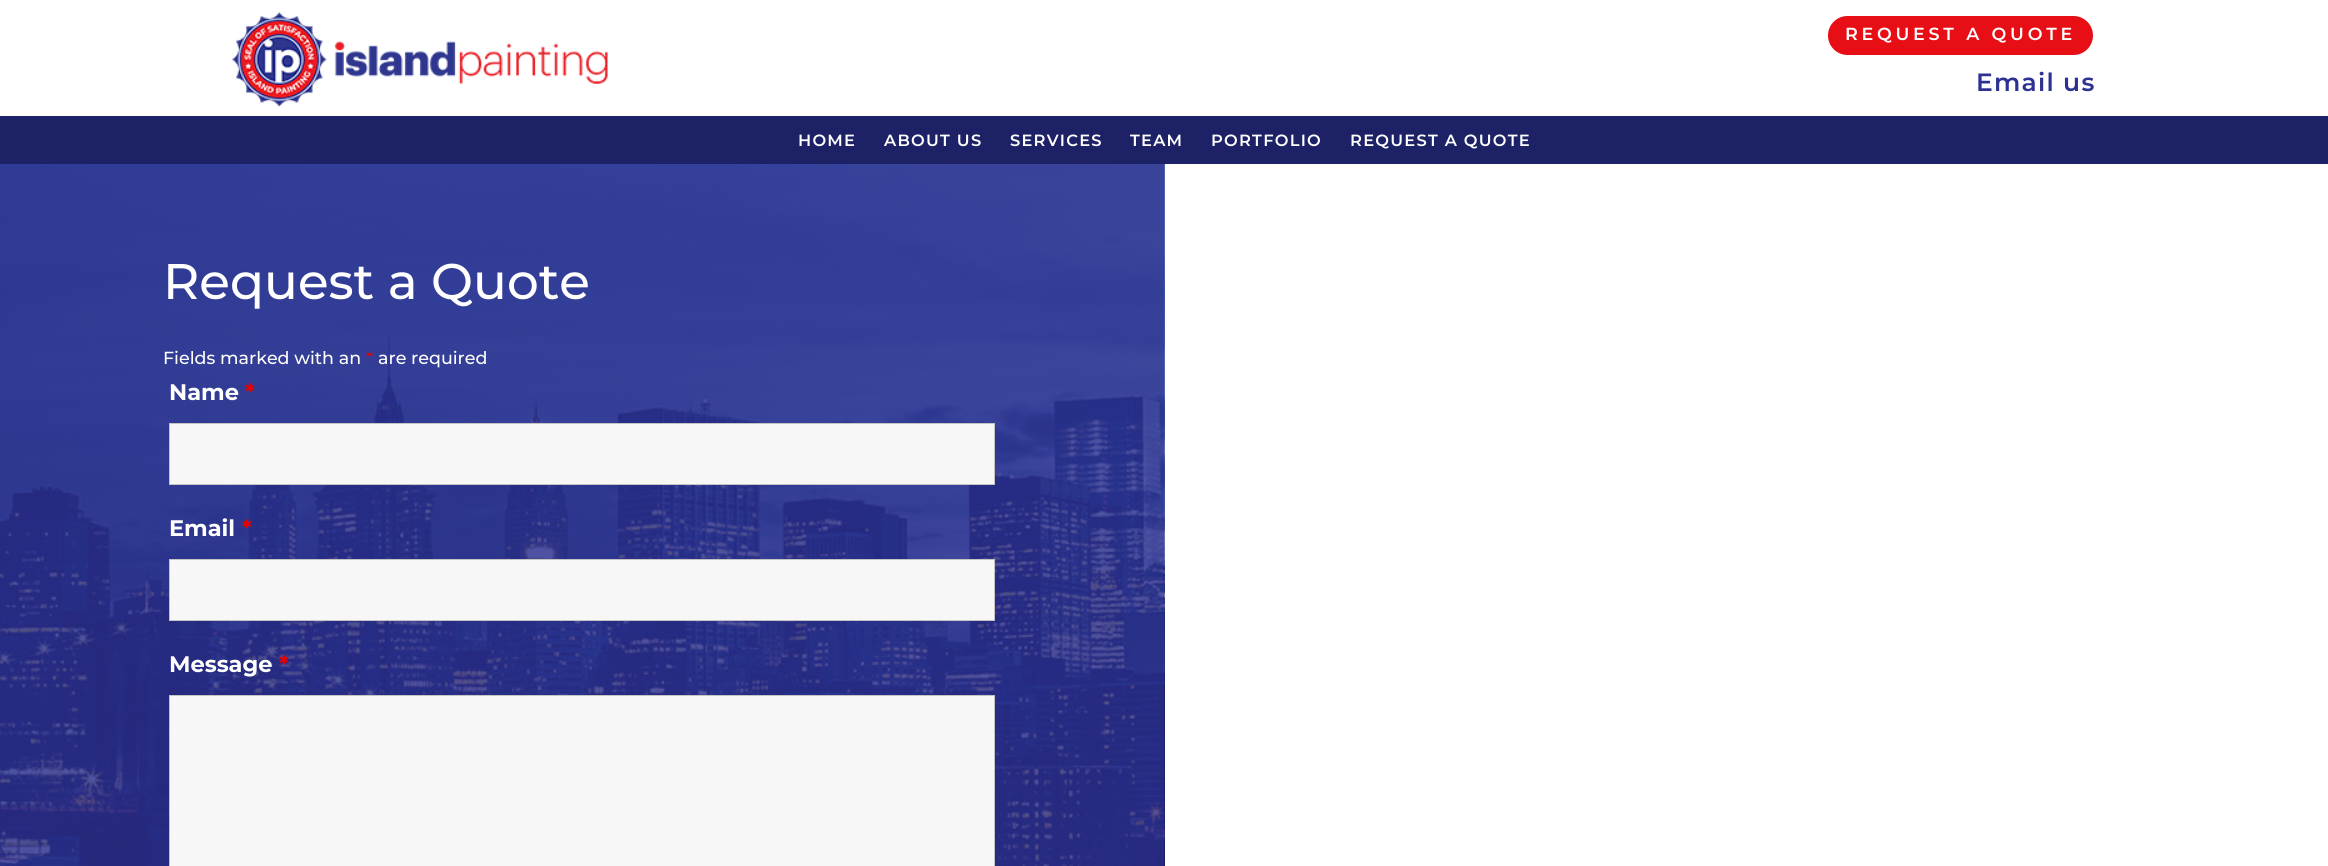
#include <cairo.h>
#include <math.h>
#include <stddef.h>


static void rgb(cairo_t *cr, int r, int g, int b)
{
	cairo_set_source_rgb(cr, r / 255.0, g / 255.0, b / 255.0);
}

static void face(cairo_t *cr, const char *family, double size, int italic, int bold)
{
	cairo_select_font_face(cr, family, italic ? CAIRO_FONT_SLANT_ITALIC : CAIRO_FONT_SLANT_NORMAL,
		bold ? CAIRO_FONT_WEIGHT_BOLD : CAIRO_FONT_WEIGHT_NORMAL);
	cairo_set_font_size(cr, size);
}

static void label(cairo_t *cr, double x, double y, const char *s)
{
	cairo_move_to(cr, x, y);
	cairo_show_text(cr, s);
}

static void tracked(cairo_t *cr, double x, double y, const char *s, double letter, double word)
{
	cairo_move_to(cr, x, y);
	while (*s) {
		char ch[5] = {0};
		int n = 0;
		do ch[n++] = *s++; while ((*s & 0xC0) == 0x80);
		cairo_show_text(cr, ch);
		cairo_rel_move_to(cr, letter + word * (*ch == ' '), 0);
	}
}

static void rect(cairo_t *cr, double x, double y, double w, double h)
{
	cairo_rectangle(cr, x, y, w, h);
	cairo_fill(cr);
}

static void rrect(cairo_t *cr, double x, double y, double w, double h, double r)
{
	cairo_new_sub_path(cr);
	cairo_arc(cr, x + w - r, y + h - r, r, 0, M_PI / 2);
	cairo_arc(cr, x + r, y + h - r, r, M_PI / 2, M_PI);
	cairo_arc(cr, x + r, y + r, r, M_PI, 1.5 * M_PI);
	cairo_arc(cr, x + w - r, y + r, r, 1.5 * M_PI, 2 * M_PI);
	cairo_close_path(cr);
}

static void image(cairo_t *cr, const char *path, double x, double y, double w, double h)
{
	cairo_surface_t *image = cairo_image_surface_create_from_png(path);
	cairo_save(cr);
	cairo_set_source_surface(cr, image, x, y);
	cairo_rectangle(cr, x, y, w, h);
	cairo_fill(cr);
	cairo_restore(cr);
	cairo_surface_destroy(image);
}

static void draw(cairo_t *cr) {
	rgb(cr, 255, 255, 255);
	cairo_paint(cr);
	image(cr, "image0.png", 232, 12, 376, 95);
	rgb(cr, 231, 14, 22);
	rrect(cr, 1826.5, 14.5, 268, 42, 21);
	cairo_fill_preserve(cr);
	rgb(cr, 255, 255, 255);
	cairo_set_line_width(cr, 3);
	cairo_stroke(cr);
	face(cr, "Montserrat SemiBold", 17.5, 0, 0);
	tracked(cr, 1845, 40, "REQUEST A QUOTE", 3.75, 0);
	face(cr, "Montserrat SemiBold", 25, 0, 0);
	rgb(cr, 45, 49, 146);
	tracked(cr, 1976, 91, "Email us", 1.25, 0);
	rgb(cr, 29, 33, 102);
	rect(cr, 0, 116, 2328, 48);
	face(cr, "Montserrat SemiBold", 16.25, 0, 0);
	rgb(cr, 255, 255, 255);
	tracked(cr, 798, 146, "HOME", 1.25, 0);
	tracked(cr, 884, 146, "ABOUT US", 1.25, 0);
	tracked(cr, 1010, 146, "SERVICES", 1.25, 0);
	tracked(cr, 1130, 146, "TEAM", 1.25, 0);
	tracked(cr, 1211, 146, "PORTFOLIO", 1.25, 0);
	tracked(cr, 1350, 146, "REQUEST A QUOTE", 1.25, 0);
	image(cr, "image1.png", 0, 164, 1165, 702);
	face(cr, "Montserrat Medium", 50, 0, 0);
	label(cr, 163, 299, "Request a Quote");
	face(cr, "Montserrat Medium", 17.5, 0, 0);
	label(cr, 163, 364, "Fields marked with an");
	rgb(cr, 232, 0, 0);
	label(cr, 366, 364, "*");
	rgb(cr, 255, 255, 255);
	label(cr, 378, 364, "are required");
	face(cr, "Montserrat", 22.5, 0, 1);
	label(cr, 169, 400, "Name");
	rgb(cr, 232, 0, 0);
	label(cr, 245, 400, "*");
	rgb(cr, 247, 247, 247);
	cairo_rectangle(cr, 169.5, 423.5, 825, 61);
	cairo_fill_preserve(cr);
	rgb(cr, 196, 196, 196);
	cairo_set_line_width(cr, 1);
	cairo_stroke(cr);
	rgb(cr, 255, 255, 255);
	label(cr, 169, 536, "Email");
	rgb(cr, 232, 0, 0);
	label(cr, 242, 536, "*");
	rgb(cr, 247, 247, 247);
	cairo_rectangle(cr, 169.5, 559.5, 825, 61);
	cairo_fill_preserve(cr);
	rgb(cr, 196, 196, 196);
	cairo_stroke(cr);
	rgb(cr, 255, 255, 255);
	label(cr, 169, 672, "Message");
	rgb(cr, 232, 0, 0);
	label(cr, 279, 672, "*");
	rgb(cr, 247, 247, 247);
	cairo_rectangle(cr, 169.5, 695.5, 825, 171);
	cairo_fill_preserve(cr);
	rgb(cr, 196, 196, 196);
	cairo_stroke(cr);
}

int main(void) {
	cairo_surface_t *surface = cairo_image_surface_create(CAIRO_FORMAT_RGB24, 2328, 866);
	cairo_t *cr = cairo_create(surface);
	cairo_font_options_t *options = cairo_font_options_create();
	cairo_font_options_set_hint_metrics(options, CAIRO_HINT_METRICS_OFF);
	cairo_font_options_set_hint_style(options, CAIRO_HINT_STYLE_NONE);
	cairo_set_font_options(cr, options);
	cairo_set_miter_limit(cr, 4);
	draw(cr);
	cairo_surface_write_to_png(surface, "render.png");
	cairo_font_options_destroy(options);
	cairo_destroy(cr);
	cairo_surface_destroy(surface);
	return 0;
}
